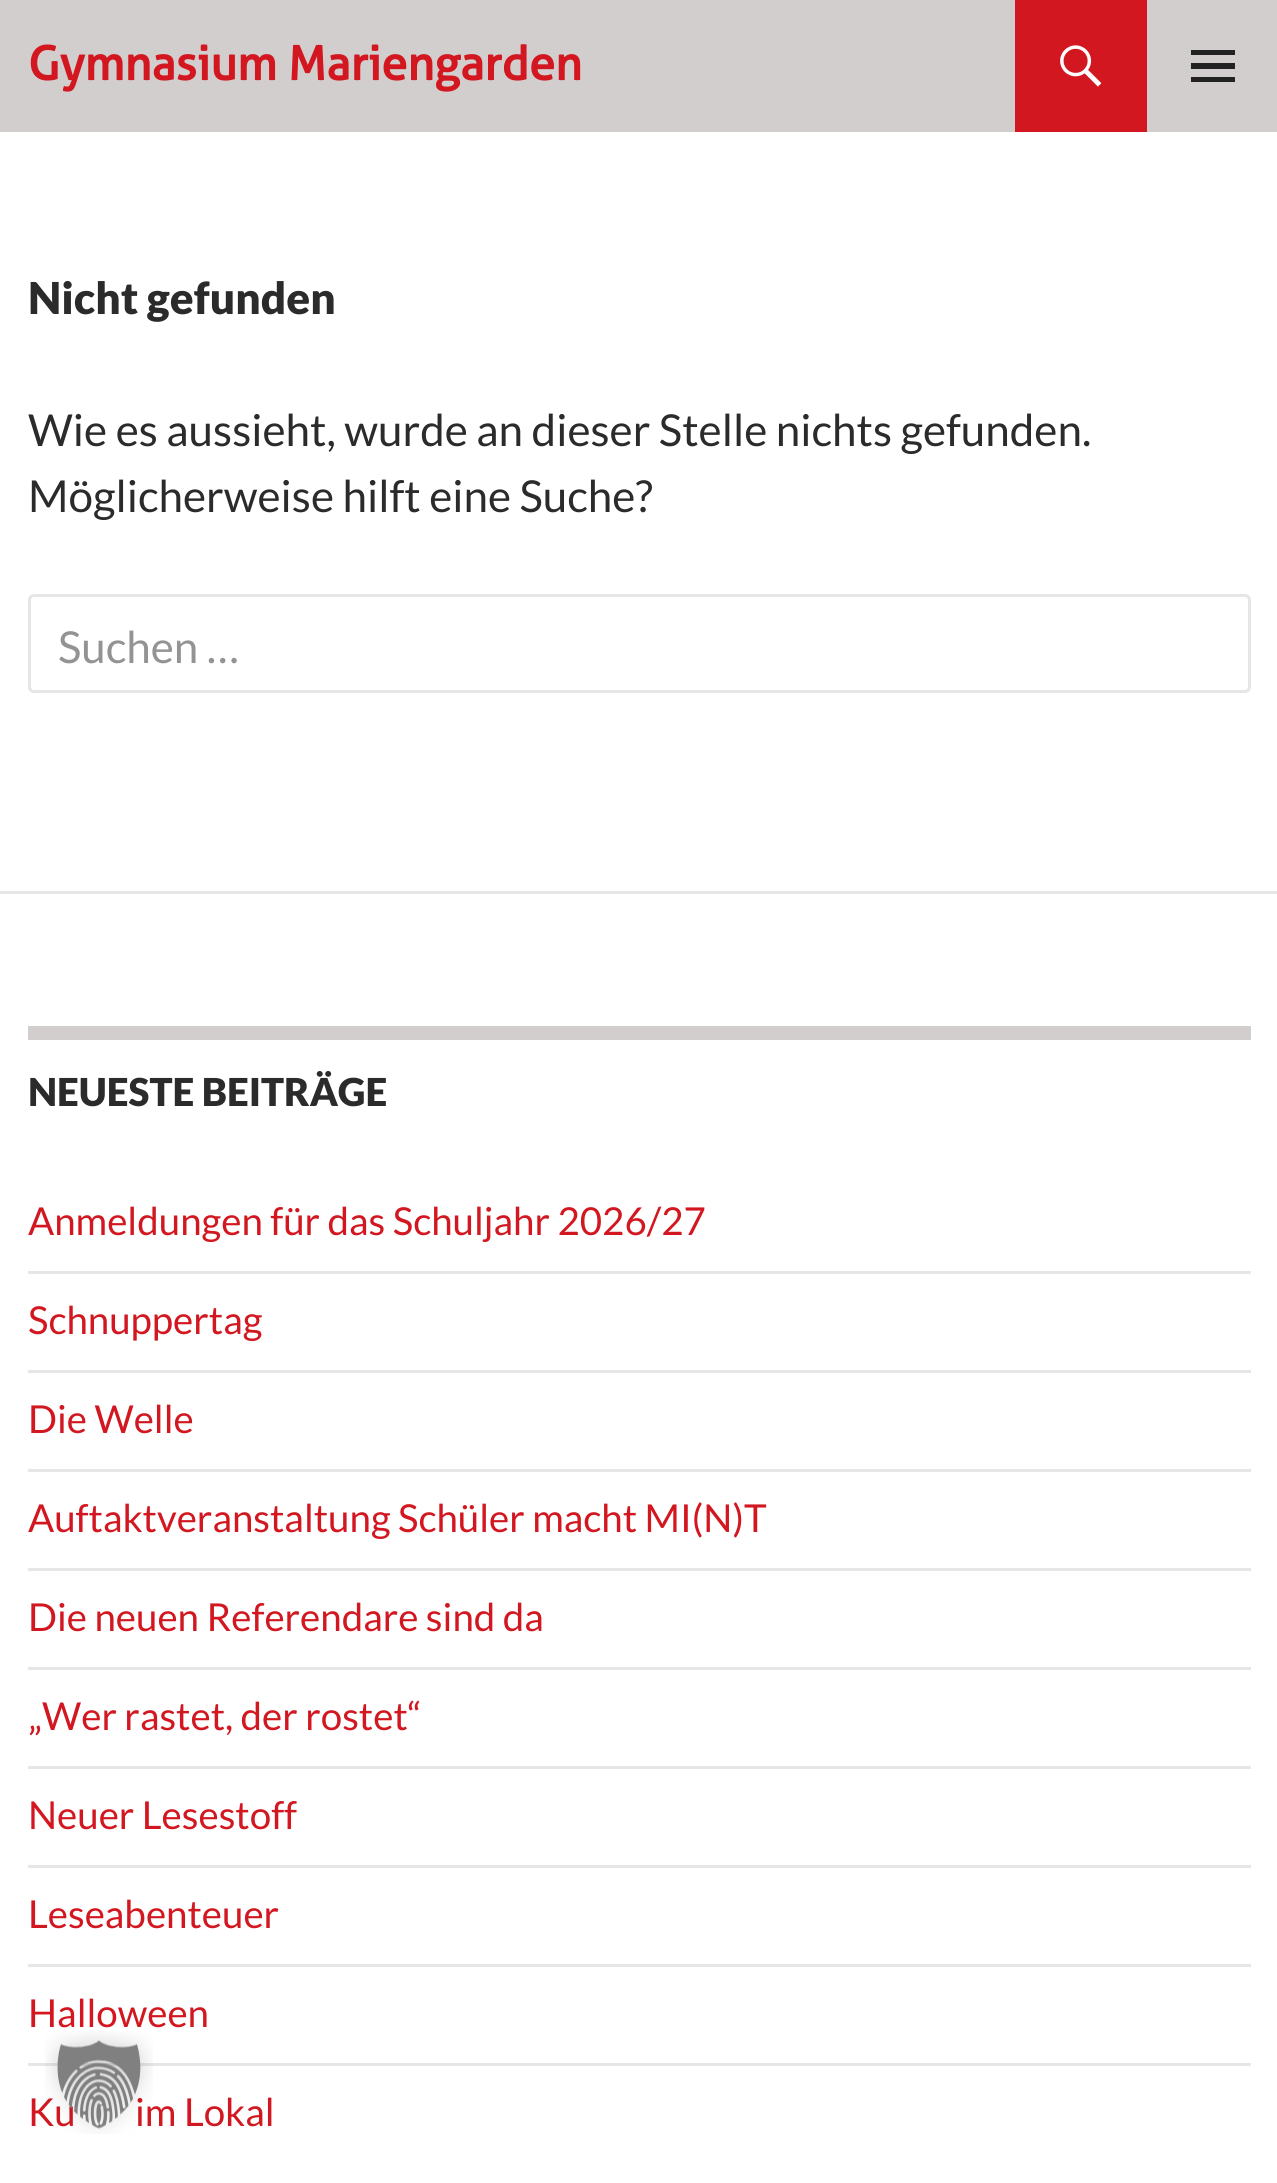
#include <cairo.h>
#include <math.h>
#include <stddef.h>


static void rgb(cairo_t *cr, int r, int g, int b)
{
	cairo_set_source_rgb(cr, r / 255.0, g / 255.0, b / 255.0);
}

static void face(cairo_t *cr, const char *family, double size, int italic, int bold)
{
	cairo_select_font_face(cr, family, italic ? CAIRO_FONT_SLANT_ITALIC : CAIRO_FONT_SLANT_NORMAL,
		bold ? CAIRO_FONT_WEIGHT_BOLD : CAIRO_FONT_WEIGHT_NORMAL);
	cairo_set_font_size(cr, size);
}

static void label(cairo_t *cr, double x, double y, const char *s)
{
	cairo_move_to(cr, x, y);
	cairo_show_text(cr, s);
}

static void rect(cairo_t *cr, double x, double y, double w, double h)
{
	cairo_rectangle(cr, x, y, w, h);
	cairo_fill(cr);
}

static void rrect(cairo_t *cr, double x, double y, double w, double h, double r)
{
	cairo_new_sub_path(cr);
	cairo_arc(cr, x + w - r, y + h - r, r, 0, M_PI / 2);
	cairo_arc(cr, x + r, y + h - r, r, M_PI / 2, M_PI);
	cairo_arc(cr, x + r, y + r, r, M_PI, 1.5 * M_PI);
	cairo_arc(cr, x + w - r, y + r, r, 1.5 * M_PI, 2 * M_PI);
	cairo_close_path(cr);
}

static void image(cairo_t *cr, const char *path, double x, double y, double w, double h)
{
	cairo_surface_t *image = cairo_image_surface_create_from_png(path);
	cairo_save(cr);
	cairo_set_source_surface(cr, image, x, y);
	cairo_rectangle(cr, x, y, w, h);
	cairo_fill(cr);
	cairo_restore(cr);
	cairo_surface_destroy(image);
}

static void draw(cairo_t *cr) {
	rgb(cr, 255, 255, 255);
	cairo_paint(cr);
	rgb(cr, 211, 206, 206);
	rect(cr, 0, 0, 1277, 132);
	face(cr, "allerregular", 46.75, 0, 1);
	rgb(cr, 210, 23, 32);
	label(cr, 28, 80, "Gymnasium Mariengarden");
	rect(cr, 1015, 0, 132, 132);
	image(cr, "image0.png", 1060, 45, 42, 42);
	rgb(cr, 34, 34, 34);
	cairo_new_path(cr);
	cairo_move_to(cr, 1191, 82);
	cairo_line_to(cr, 1191, 77);
	cairo_line_to(cr, 1235, 77);
	cairo_line_to(cr, 1235, 82);
	cairo_close_path(cr);
	cairo_move_to(cr, 1191, 69);
	cairo_line_to(cr, 1191, 63);
	cairo_line_to(cr, 1235, 63);
	cairo_line_to(cr, 1235, 69);
	cairo_close_path(cr);
	cairo_move_to(cr, 1191, 55);
	cairo_line_to(cr, 1191, 50);
	cairo_line_to(cr, 1235, 50);
	cairo_line_to(cr, 1235, 55);
	cairo_close_path(cr);
	cairo_fill(cr);
	face(cr, "Lato Black", 44, 0, 0);
	rgb(cr, 43, 43, 43);
	label(cr, 28, 314, "Nicht gefunden");
	face(cr, "Lato", 44, 0, 0);
	label(cr, 28, 446, "Wie es aussieht, wurde an dieser Stelle nichts gefunden.");
	label(cr, 28, 512, "Möglicherweise hilft eine Suche?");
	rrect(cr, 29.5, 595.5, 1220, 96, 4.5);
	rgb(cr, 230, 230, 230);
	cairo_set_line_width(cr, 3);
	cairo_stroke(cr);
	rgb(cr, 147, 147, 147);
	label(cr, 58, 663, "Suchen …");
	rgb(cr, 230, 230, 230);
	rect(cr, 0, 891, 1277, 3);
	rgb(cr, 211, 206, 206);
	rect(cr, 28, 1026, 1223, 14);
	face(cr, "Lato Black", 38.5, 0, 0);
	rgb(cr, 43, 43, 43);
	label(cr, 28, 1106, "NEUESTE BEITRÄGE");
	face(cr, "Lato", 38.5, 0, 0);
	rgb(cr, 210, 23, 32);
	label(cr, 28, 1235, "Anmeldungen für das Schuljahr 2026/27");
	rgb(cr, 230, 230, 230);
	rect(cr, 28, 1271, 1223, 3);
	rgb(cr, 210, 23, 32);
	label(cr, 28, 1334, "Schnuppertag");
	rgb(cr, 230, 230, 230);
	rect(cr, 28, 1370, 1223, 3);
	rgb(cr, 210, 23, 32);
	label(cr, 28, 1433, "Die Welle");
	rgb(cr, 230, 230, 230);
	rect(cr, 28, 1469, 1223, 3);
	rgb(cr, 210, 23, 32);
	label(cr, 28, 1532, "Auftaktveranstaltung Schüler macht MI(N)T");
	rgb(cr, 230, 230, 230);
	rect(cr, 28, 1568, 1223, 3);
	rgb(cr, 210, 23, 32);
	label(cr, 28, 1631, "Die neuen Referendare sind da");
	rgb(cr, 230, 230, 230);
	rect(cr, 28, 1667, 1223, 3);
	rgb(cr, 210, 23, 32);
	label(cr, 28, 1730, "„Wer rastet, der rostet“");
	rgb(cr, 230, 230, 230);
	rect(cr, 28, 1766, 1223, 3);
	rgb(cr, 210, 23, 32);
	label(cr, 28, 1829, "Neuer Lesestoff");
	rgb(cr, 230, 230, 230);
	rect(cr, 28, 1865, 1223, 3);
	rgb(cr, 210, 23, 32);
	label(cr, 28, 1928, "Leseabenteuer");
	rgb(cr, 230, 230, 230);
	rect(cr, 28, 1964, 1223, 3);
	rgb(cr, 210, 23, 32);
	label(cr, 28, 2027, "Halloween");
	rgb(cr, 230, 230, 230);
	rect(cr, 28, 2063, 1223, 3);
	rgb(cr, 210, 23, 32);
	label(cr, 28, 2126, "Ku");
	label(cr, 135, 2126, "im Lokal");
	image(cr, "image1.png", 45, 2031, 108, 103);
}

int main(void) {
	cairo_surface_t *surface = cairo_image_surface_create(CAIRO_FORMAT_RGB24, 1277, 2183);
	cairo_t *cr = cairo_create(surface);
	cairo_font_options_t *options = cairo_font_options_create();
	cairo_font_options_set_hint_metrics(options, CAIRO_HINT_METRICS_OFF);
	cairo_font_options_set_hint_style(options, CAIRO_HINT_STYLE_NONE);
	cairo_set_font_options(cr, options);
	cairo_set_miter_limit(cr, 4);
	draw(cr);
	cairo_surface_write_to_png(surface, "render.png");
	cairo_font_options_destroy(options);
	cairo_destroy(cr);
	cairo_surface_destroy(surface);
	return 0;
}
